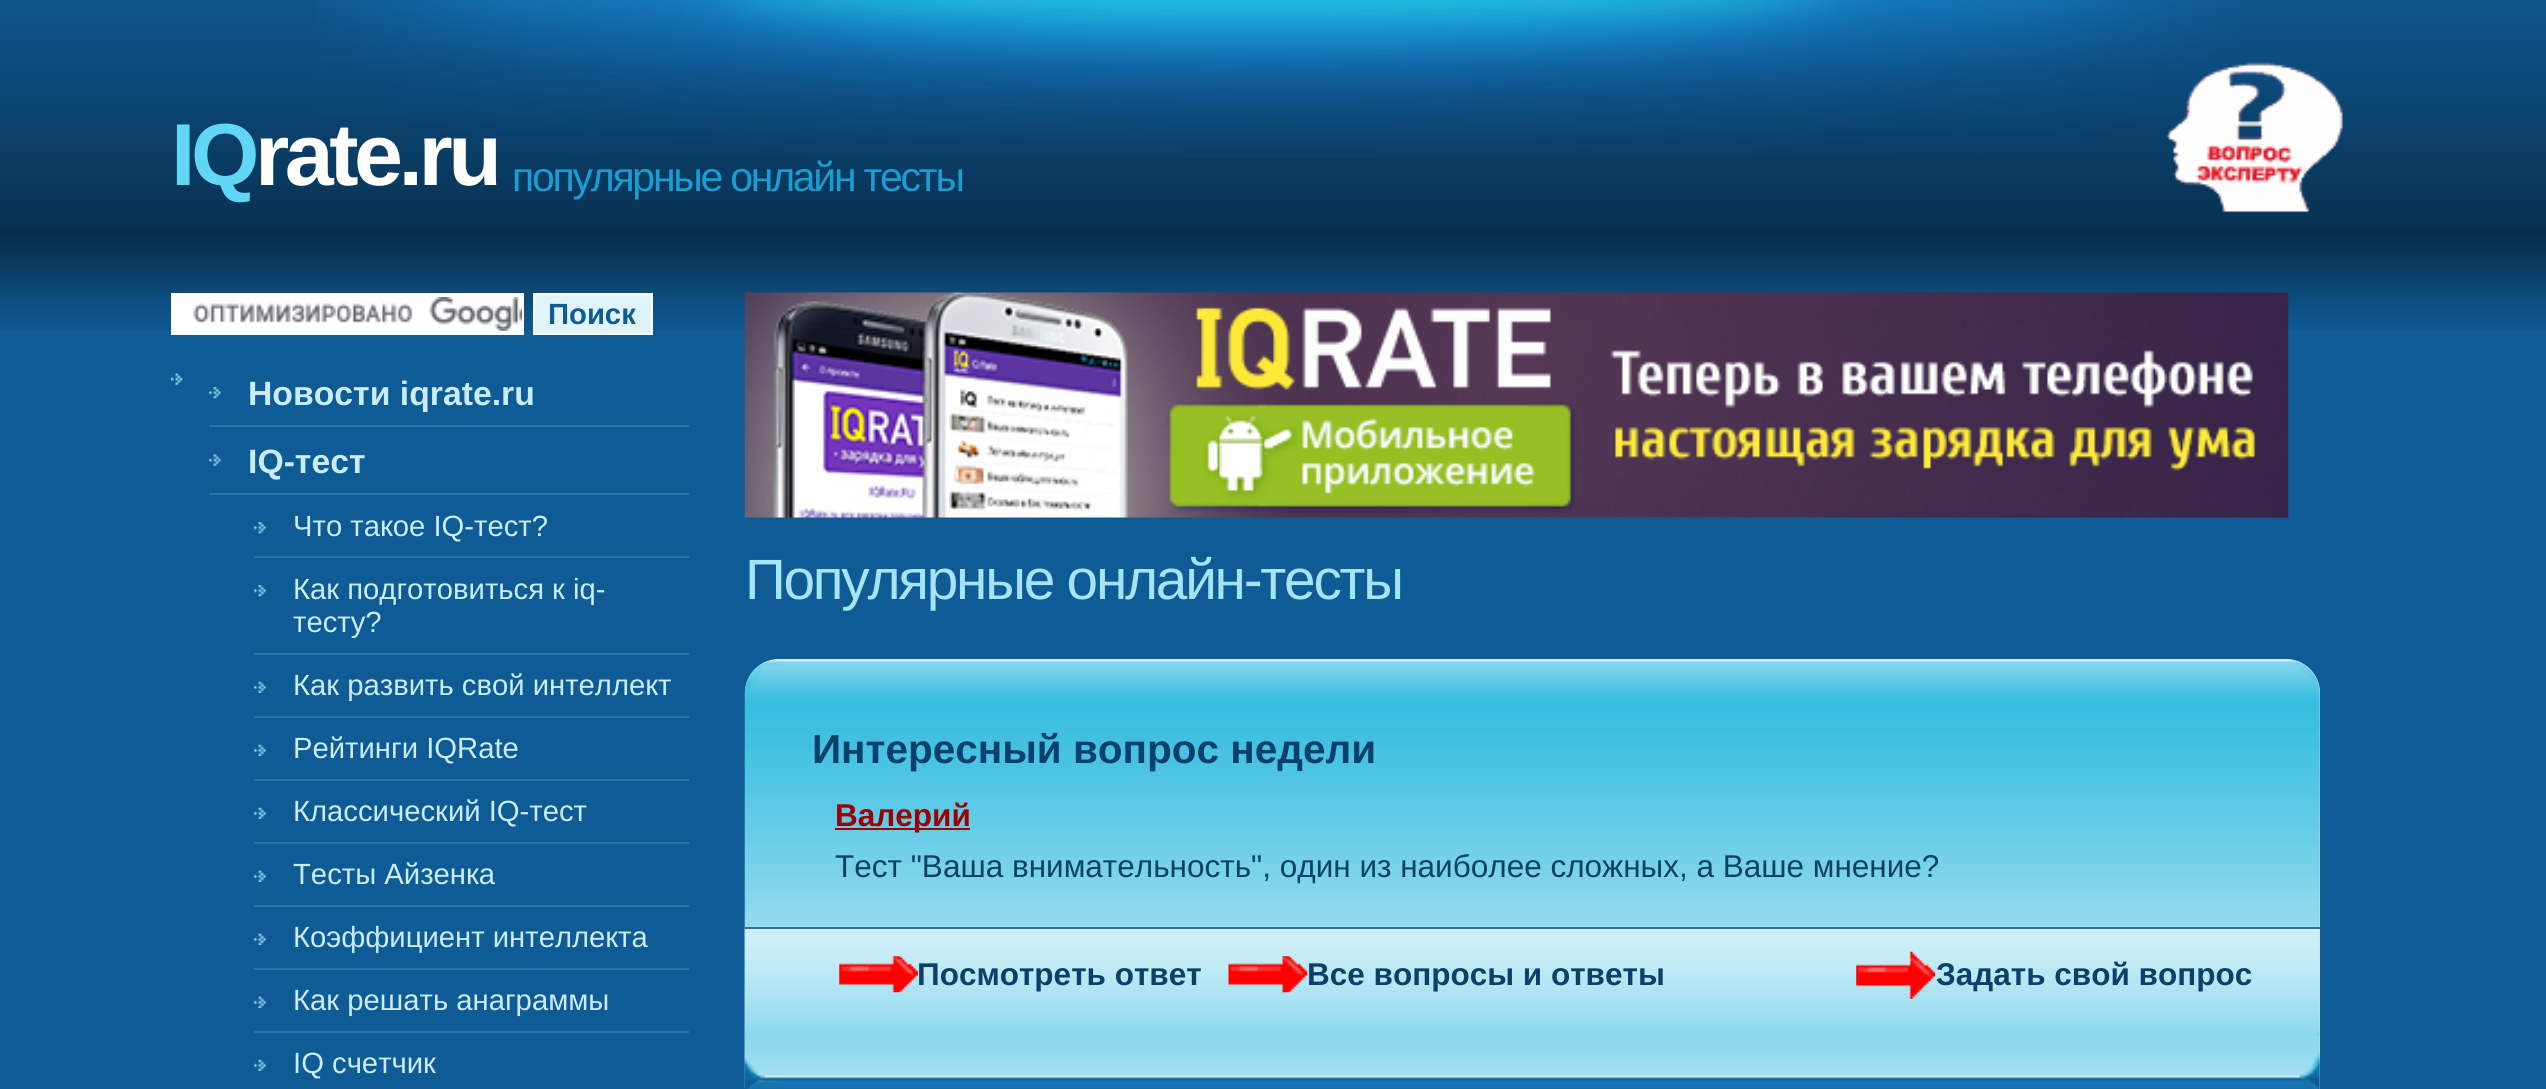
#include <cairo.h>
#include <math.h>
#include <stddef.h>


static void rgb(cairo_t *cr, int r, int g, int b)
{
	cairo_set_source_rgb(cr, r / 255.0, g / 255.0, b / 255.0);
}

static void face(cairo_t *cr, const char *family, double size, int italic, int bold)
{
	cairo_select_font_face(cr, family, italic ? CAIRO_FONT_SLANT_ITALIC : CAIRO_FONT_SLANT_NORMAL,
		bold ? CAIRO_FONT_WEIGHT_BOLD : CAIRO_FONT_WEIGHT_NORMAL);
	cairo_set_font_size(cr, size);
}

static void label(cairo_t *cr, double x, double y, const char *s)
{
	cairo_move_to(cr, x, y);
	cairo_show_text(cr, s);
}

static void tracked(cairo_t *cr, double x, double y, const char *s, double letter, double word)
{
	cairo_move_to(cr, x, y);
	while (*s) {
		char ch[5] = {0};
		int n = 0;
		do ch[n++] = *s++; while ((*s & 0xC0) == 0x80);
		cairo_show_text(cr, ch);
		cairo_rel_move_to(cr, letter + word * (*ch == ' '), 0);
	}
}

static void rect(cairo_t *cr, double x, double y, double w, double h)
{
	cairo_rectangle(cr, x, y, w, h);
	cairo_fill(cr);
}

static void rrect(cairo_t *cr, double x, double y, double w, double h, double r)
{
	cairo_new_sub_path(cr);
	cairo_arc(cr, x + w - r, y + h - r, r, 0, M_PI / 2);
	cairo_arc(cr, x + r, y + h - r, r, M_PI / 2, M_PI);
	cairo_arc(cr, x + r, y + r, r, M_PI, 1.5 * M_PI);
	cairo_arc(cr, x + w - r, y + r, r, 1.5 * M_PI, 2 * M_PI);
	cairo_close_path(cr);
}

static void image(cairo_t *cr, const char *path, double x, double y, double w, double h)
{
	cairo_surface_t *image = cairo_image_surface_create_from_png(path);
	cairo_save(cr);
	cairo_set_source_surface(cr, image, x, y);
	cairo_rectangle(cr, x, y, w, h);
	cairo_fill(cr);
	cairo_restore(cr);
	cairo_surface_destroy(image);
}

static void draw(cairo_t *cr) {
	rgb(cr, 15, 91, 150);
	cairo_paint(cr);
	image(cr, "image0.png", 0, 0, 2546, 330);
	image(cr, "image1.png", 316, 0, 1924, 157);
	face(cr, "Liberation Sans", 88, 0, 1);
	rgb(cr, 98, 214, 245);
	tracked(cr, 171, 185, "IQ", -4.5, 0);
	rgb(cr, 255, 255, 255);
	tracked(cr, 255, 185, "rate.ru", -4.5, 0);
	face(cr, "Liberation Sans", 41, 0, 0);
	rgb(cr, 25, 157, 210);
	tracked(cr, 512, 191, "популярные онлайн тесты", -2.25, 0);
	image(cr, "image2.png", 2166, 62, 177, 151);
	rgb(cr, 255, 255, 255);
	rect(cr, 173, 295, 349, 38);
	image(cr, "image3.png", 193, 297, 332, 34);
	cairo_rectangle(cr, 172, 294, 351, 40);
	cairo_stroke(cr);
	rgb(cr, 223, 244, 250);
	cairo_rectangle(cr, 534, 294, 118, 40);
	cairo_fill_preserve(cr);
	rgb(cr, 255, 255, 255);
	cairo_stroke(cr);
	face(cr, "Liberation Sans", 29.25, 0, 1);
	rgb(cr, 15, 91, 150);
	label(cr, 548, 324, "Поиск");
	image(cr, "image4.png", 171, 373, 12, 12);
	image(cr, "image5.png", 209, 387, 12, 12);
	rgb(cr, 40, 114, 166);
	rect(cr, 209, 425, 480, 2);
	face(cr, "Liberation Sans", 33.75, 0, 1);
	rgb(cr, 201, 236, 245);
	label(cr, 248, 405, "Новости iqrate.ru");
	image(cr, "image6.png", 209, 454, 12, 12);
	rgb(cr, 40, 114, 166);
	rect(cr, 209, 493, 480, 2);
	rgb(cr, 201, 236, 245);
	label(cr, 248, 473, "IQ-тест");
	image(cr, "image5.png", 254, 522, 12, 12);
	rgb(cr, 40, 114, 166);
	rect(cr, 254, 556, 435, 2);
	face(cr, "Liberation Sans", 29.25, 0, 0);
	rgb(cr, 201, 236, 245);
	label(cr, 293, 536, "Что такое IQ-тест?");
	image(cr, "image5.png", 254, 585, 12, 12);
	rgb(cr, 40, 114, 166);
	rect(cr, 254, 653, 435, 2);
	rgb(cr, 201, 236, 245);
	label(cr, 293, 599, "Как подготовиться к iq-");
	label(cr, 293, 632, "тесту?");
	image(cr, "image7.png", 254, 681, 12, 12);
	rgb(cr, 40, 114, 166);
	rect(cr, 254, 716, 435, 2);
	rgb(cr, 201, 236, 245);
	label(cr, 293, 695, "Как развить свой интеллект");
	image(cr, "image7.png", 254, 744, 12, 12);
	rgb(cr, 40, 114, 166);
	rect(cr, 254, 779, 435, 2);
	rgb(cr, 201, 236, 245);
	label(cr, 293, 758, "Рейтинги IQRate");
	image(cr, "image7.png", 254, 807, 12, 12);
	rgb(cr, 40, 114, 166);
	rect(cr, 254, 842, 435, 2);
	rgb(cr, 201, 236, 245);
	label(cr, 293, 821, "Классический IQ-тест");
	image(cr, "image7.png", 254, 870, 12, 12);
	rgb(cr, 40, 114, 166);
	rect(cr, 254, 905, 435, 2);
	rgb(cr, 201, 236, 245);
	label(cr, 293, 884, "Тесты Айзенка");
	image(cr, "image7.png", 254, 933, 12, 12);
	rgb(cr, 40, 114, 166);
	rect(cr, 254, 968, 435, 2);
	rgb(cr, 201, 236, 245);
	label(cr, 293, 947, "Коэффициент интеллекта");
	image(cr, "image7.png", 254, 996, 12, 12);
	rgb(cr, 40, 114, 166);
	rect(cr, 254, 1031, 435, 2);
	rgb(cr, 201, 236, 245);
	label(cr, 293, 1010, "Как решать анаграммы");
	image(cr, "image7.png", 254, 1059, 12, 12);
	label(cr, 293, 1073, "IQ счетчик");
	image(cr, "image8.png", 744, 292, 1545, 226);
	face(cr, "Liberation Sans", 56.75, 0, 0);
	rgb(cr, 164, 228, 245);
	tracked(cr, 745, 599, "Популярные онлайн-тесты", -2.25, 0);
	rgb(cr, 223, 244, 250);
	rrect(cr, 745, 659, 1575, 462, 34);
	cairo_fill(cr);
	image(cr, "image9.png", 744, 659, 1576, 430);
	face(cr, "Liberation Sans", 40.5, 0, 1);
	rgb(cr, 10, 65, 107);
	label(cr, 812, 763, "Интересный вопрос недели");
	rgb(cr, 157, 0, 0);
	rect(cr, 835, 828, 135, 2);
	face(cr, "Liberation Sans", 31.5, 0, 1);
	label(cr, 835, 826, "Валерий");
	face(cr, "Liberation Sans", 31.5, 0, 0);
	rgb(cr, 10, 65, 107);
	label(cr, 835, 877, "Тест \"Ваша внимательность\", один из наиболее сложных, а Ваше мнение?");
	image(cr, "image10.png", 744, 927, 1576, 162);
	rgb(cr, 40, 114, 166);
	rect(cr, 745, 927, 1575, 2);
	image(cr, "image11.png", 839, 956, 79, 37);
	face(cr, "Liberation Sans", 31.5, 0, 1);
	rgb(cr, 10, 65, 107);
	label(cr, 917, 985, "Посмотреть ответ");
	image(cr, "image12.png", 1228, 956, 80, 37);
	label(cr, 1307, 985, "Все вопросы и ответы");
	image(cr, "image13.png", 1856, 951, 79, 48);
	label(cr, 1936, 985, "Задать свой вопрос");
}

int main(void) {
	cairo_surface_t *surface = cairo_image_surface_create(CAIRO_FORMAT_RGB24, 2546, 1089);
	cairo_t *cr = cairo_create(surface);
	cairo_font_options_t *options = cairo_font_options_create();
	cairo_font_options_set_hint_metrics(options, CAIRO_HINT_METRICS_OFF);
	cairo_font_options_set_hint_style(options, CAIRO_HINT_STYLE_NONE);
	cairo_set_font_options(cr, options);
	cairo_set_miter_limit(cr, 4);
	draw(cr);
	cairo_surface_write_to_png(surface, "render.png");
	cairo_font_options_destroy(options);
	cairo_destroy(cr);
	cairo_surface_destroy(surface);
	return 0;
}
